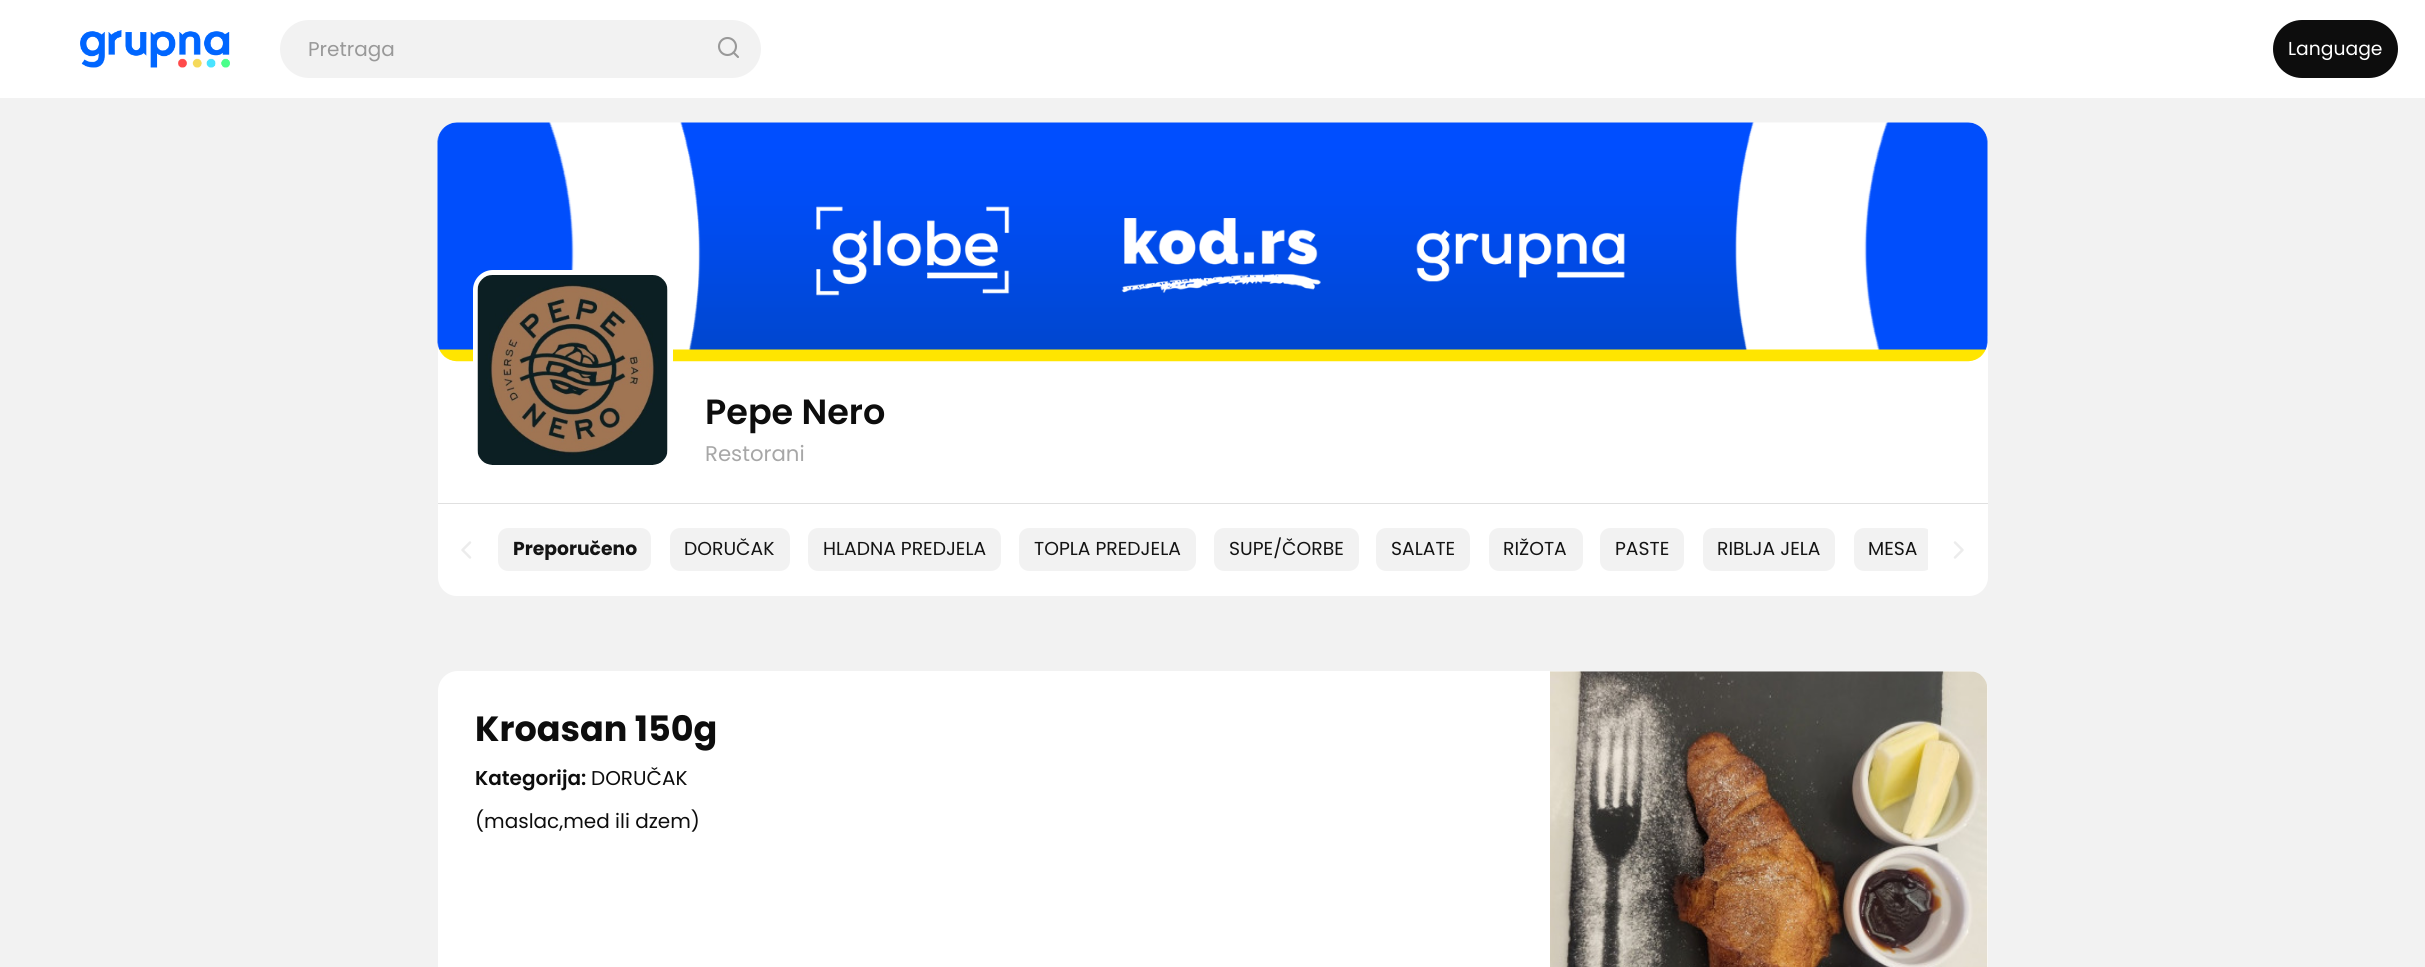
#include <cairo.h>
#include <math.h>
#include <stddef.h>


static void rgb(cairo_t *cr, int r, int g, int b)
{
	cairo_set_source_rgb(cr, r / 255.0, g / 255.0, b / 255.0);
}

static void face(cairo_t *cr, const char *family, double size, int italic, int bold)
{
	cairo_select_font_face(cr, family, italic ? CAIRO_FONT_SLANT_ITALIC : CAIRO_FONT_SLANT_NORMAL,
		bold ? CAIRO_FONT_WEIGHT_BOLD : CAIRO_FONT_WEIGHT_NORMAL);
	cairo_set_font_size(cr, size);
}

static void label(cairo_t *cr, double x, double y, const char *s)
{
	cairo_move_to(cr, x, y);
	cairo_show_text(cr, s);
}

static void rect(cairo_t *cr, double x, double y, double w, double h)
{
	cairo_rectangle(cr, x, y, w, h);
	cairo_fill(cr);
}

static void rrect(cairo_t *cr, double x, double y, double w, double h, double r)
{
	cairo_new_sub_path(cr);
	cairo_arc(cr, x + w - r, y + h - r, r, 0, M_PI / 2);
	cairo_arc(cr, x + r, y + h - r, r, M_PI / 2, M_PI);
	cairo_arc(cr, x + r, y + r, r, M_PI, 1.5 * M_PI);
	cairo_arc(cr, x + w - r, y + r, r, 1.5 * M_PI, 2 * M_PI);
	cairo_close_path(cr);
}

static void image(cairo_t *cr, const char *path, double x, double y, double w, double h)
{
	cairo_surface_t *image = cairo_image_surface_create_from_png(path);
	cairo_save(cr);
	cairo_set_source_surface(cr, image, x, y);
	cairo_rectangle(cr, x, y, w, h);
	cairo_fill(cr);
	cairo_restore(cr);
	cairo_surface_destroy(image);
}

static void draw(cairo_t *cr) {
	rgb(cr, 242, 242, 242);
	cairo_paint(cr);
	rgb(cr, 255, 255, 255);
	rect(cr, 0, 0, 2425, 98);
	image(cr, "image0.png", 80, 30, 150, 38);
	rgb(cr, 242, 242, 242);
	rrect(cr, 280, 20, 481, 58, 29);
	cairo_fill(cr);
	face(cr, "Poppins", 20, 0, 0);
	rgb(cr, 153, 153, 153);
	label(cr, 308, 56, "Pretraga");
	cairo_new_path(cr);
	cairo_arc(cr, 727.5, 46.5, 8.5, 0, 2 * M_PI);
	cairo_set_line_width(cr, 2.1);
	cairo_stroke(cr);
	cairo_new_path(cr);
	cairo_move_to(cr, 738, 57);
	cairo_line_to(cr, 733.5, 52.5);
	cairo_set_line_cap(cr, CAIRO_LINE_CAP_ROUND);
	cairo_set_line_join(cr, CAIRO_LINE_JOIN_ROUND);
	cairo_stroke(cr);
	rgb(cr, 13, 13, 13);
	rrect(cr, 2273, 20, 125, 58, 29);
	cairo_fill(cr);
	face(cr, "Poppins", 18.75, 0, 0);
	rgb(cr, 255, 255, 255);
	label(cr, 2288, 55, "Language");
	rect(cr, 438, 336, 1550, 167);
	image(cr, "image1.png", 437, 122, 1551, 240);
	rrect(cr, 475.5, 272.5, 195, 195, 17.5);
	cairo_fill_preserve(cr);
	cairo_set_line_width(cr, 5);
	cairo_set_line_cap(cr, CAIRO_LINE_CAP_BUTT);
	cairo_set_line_join(cr, CAIRO_LINE_JOIN_MITER);
	cairo_stroke(cr);
	image(cr, "image2.png", 477, 275, 191, 190);
	face(cr, "Poppins SemiBold", 35, 0, 0);
	rgb(cr, 13, 13, 13);
	label(cr, 705, 424, "Pepe Nero");
	face(cr, "Poppins", 21.25, 0, 0);
	rgb(cr, 167, 167, 167);
	label(cr, 705, 461, "Restorani");
	rgb(cr, 255, 255, 255);
	cairo_new_path(cr);
	cairo_move_to(cr, 438, 503);
	cairo_line_to(cr, 1988, 503);
	cairo_line_to(cr, 1988, 577);
	cairo_curve_to(cr, 1988, 587.5, 1979.5, 596, 1969, 596);
	cairo_line_to(cr, 457, 596);
	cairo_curve_to(cr, 446.5, 596, 438, 587.5, 438, 577);
	cairo_close_path(cr);
	cairo_fill(cr);
	rgb(cr, 224, 224, 224);
	rect(cr, 438, 503, 1550, 1);
	cairo_new_path(cr);
	cairo_move_to(cr, 470, 557.5);
	cairo_line_to(cr, 462.5, 550);
	cairo_line_to(cr, 470, 542.5);
	rgb(cr, 236, 236, 236);
	cairo_set_line_width(cr, 2.5);
	cairo_set_line_cap(cr, CAIRO_LINE_CAP_ROUND);
	cairo_set_line_join(cr, CAIRO_LINE_JOIN_ROUND);
	cairo_stroke(cr);
	rgb(cr, 242, 242, 242);
	rrect(cr, 498, 528, 153, 43, 10);
	cairo_fill(cr);
	face(cr, "Poppins", 18.75, 0, 1);
	rgb(cr, 20, 20, 20);
	label(cr, 513, 555, "Preporučeno");
	rgb(cr, 242, 242, 242);
	rrect(cr, 670, 528, 120, 43, 10);
	cairo_fill(cr);
	face(cr, "Poppins", 18.75, 0, 0);
	rgb(cr, 20, 20, 20);
	label(cr, 684, 555, "DORUČAK");
	rgb(cr, 242, 242, 242);
	rrect(cr, 808, 528, 193, 43, 10);
	cairo_fill(cr);
	rgb(cr, 20, 20, 20);
	label(cr, 823, 555, "HLADNA PREDJELA");
	rgb(cr, 242, 242, 242);
	rrect(cr, 1019, 528, 177, 43, 10);
	cairo_fill(cr);
	rgb(cr, 20, 20, 20);
	label(cr, 1034, 555, "TOPLA PREDJELA");
	rgb(cr, 242, 242, 242);
	rrect(cr, 1214, 528, 145, 43, 10);
	cairo_fill(cr);
	rgb(cr, 20, 20, 20);
	label(cr, 1229, 555, "SUPE/ČORBE");
	rgb(cr, 242, 242, 242);
	rrect(cr, 1376, 528, 94, 43, 10);
	cairo_fill(cr);
	rgb(cr, 20, 20, 20);
	label(cr, 1391, 555, "SALATE");
	rgb(cr, 242, 242, 242);
	rrect(cr, 1489, 528, 94, 43, 10);
	cairo_fill(cr);
	rgb(cr, 20, 20, 20);
	label(cr, 1503, 555, "RIŽOTA");
	rgb(cr, 242, 242, 242);
	rrect(cr, 1600, 528, 84, 43, 10);
	cairo_fill(cr);
	rgb(cr, 20, 20, 20);
	label(cr, 1615, 555, "PASTE");
	rgb(cr, 242, 242, 242);
	rrect(cr, 1703, 528, 132, 43, 10);
	cairo_fill(cr);
	rgb(cr, 20, 20, 20);
	label(cr, 1717, 555, "RIBLJA JELA");
	cairo_save(cr);
	cairo_rectangle(cr, 498, 528, 1430, 45);
	cairo_clip(cr);
	rgb(cr, 242, 242, 242);
	rrect(cr, 1854, 528, 79, 43, 10);
	cairo_fill(cr);
	cairo_restore(cr);
	label(cr, 1868, 555, "MESA");
	cairo_new_path(cr);
	cairo_move_to(cr, 1955, 557.5);
	cairo_line_to(cr, 1962.5, 550);
	cairo_line_to(cr, 1955, 542.5);
	rgb(cr, 236, 236, 236);
	cairo_stroke(cr);
	rgb(cr, 255, 255, 255);
	rrect(cr, 438, 671, 1550, 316, 20);
	cairo_fill(cr);
	face(cr, "Poppins", 35, 0, 1);
	rgb(cr, 13, 13, 13);
	label(cr, 475, 741, "Kroasan 150g");
	face(cr, "Poppins SemiBold", 20, 0, 0);
	label(cr, 475, 785, "Kategorija:");
	face(cr, "Poppins", 20, 0, 0);
	label(cr, 591, 785, "DORUČAK");
	label(cr, 475, 828, "(maslac,med ili dzem)");
	image(cr, "image3.png", 1550, 671, 438, 296);
}

int main(void) {
	cairo_surface_t *surface = cairo_image_surface_create(CAIRO_FORMAT_RGB24, 2425, 967);
	cairo_t *cr = cairo_create(surface);
	cairo_font_options_t *options = cairo_font_options_create();
	cairo_font_options_set_hint_metrics(options, CAIRO_HINT_METRICS_OFF);
	cairo_font_options_set_hint_style(options, CAIRO_HINT_STYLE_NONE);
	cairo_set_font_options(cr, options);
	cairo_set_miter_limit(cr, 4);
	draw(cr);
	cairo_surface_write_to_png(surface, "render.png");
	cairo_font_options_destroy(options);
	cairo_destroy(cr);
	cairo_surface_destroy(surface);
	return 0;
}
